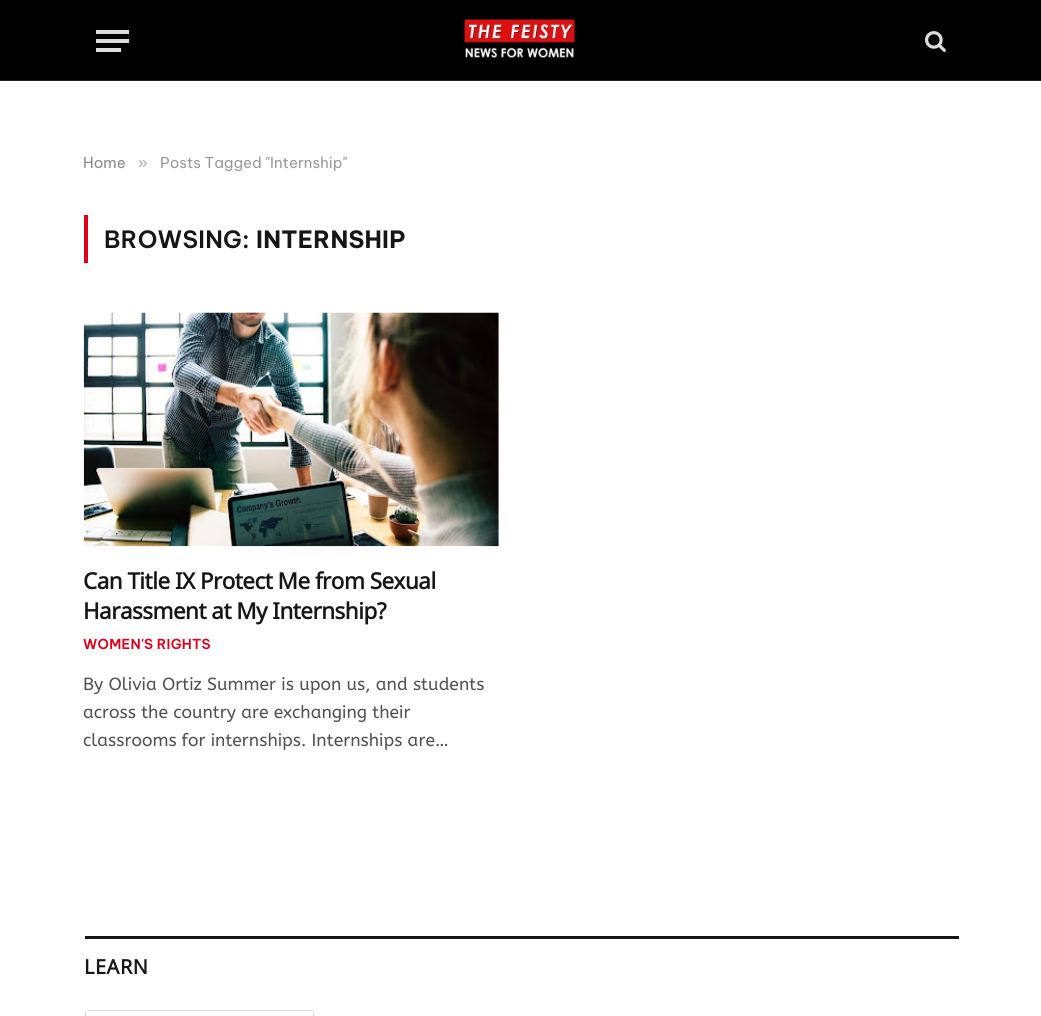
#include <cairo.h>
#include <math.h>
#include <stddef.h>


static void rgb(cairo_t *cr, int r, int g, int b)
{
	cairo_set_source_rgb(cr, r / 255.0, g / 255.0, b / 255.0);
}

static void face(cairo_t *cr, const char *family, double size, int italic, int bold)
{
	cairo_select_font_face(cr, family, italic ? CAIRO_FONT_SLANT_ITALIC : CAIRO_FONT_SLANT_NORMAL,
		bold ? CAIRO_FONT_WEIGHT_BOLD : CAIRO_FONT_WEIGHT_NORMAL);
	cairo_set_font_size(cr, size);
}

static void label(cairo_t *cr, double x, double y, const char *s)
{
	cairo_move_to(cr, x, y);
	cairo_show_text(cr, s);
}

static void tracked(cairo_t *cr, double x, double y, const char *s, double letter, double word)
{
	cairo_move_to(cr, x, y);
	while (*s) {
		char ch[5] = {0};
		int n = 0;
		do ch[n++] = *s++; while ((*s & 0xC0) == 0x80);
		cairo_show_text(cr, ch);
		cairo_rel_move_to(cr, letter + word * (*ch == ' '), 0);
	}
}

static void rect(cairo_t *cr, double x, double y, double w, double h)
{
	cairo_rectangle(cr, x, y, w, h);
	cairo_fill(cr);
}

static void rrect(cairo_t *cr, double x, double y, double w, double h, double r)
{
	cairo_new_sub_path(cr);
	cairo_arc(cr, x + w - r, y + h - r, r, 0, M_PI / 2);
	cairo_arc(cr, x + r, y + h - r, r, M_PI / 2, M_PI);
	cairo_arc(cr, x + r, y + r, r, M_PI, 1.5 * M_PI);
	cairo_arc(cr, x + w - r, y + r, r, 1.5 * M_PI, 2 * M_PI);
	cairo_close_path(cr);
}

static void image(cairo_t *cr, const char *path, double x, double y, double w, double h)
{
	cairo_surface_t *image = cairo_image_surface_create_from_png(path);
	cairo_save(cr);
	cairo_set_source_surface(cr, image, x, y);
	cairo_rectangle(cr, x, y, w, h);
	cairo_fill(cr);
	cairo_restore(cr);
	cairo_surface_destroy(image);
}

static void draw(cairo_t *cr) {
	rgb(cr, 255, 255, 255);
	cairo_paint(cr);
	rgb(cr, 0, 0, 0);
	rect(cr, 0, 0, 1041, 80);
	rgb(cr, 34, 34, 34);
	rect(cr, 0, 80, 1041, 1);
	rgb(cr, 221, 221, 221);
	rect(cr, 96, 48, 25, 4);
	rect(cr, 96, 30, 33, 4);
	rect(cr, 96, 39, 33, 4);
	image(cr, "image0.png", 460, 18, 116, 40);
	image(cr, "image1.png", 925, 31, 21, 21);
	face(cr, "Be Vietnam Pro", 15, 0, 0);
	rgb(cr, 138, 138, 138);
	label(cr, 83, 168, "Home");
	face(cr, "Liberation Sans", 17, 0, 0);
	rgb(cr, 173, 173, 173);
	label(cr, 138, 168, "»");
	cairo_save(cr);
	cairo_rectangle(cr, 53, 154, 937, 17);
	cairo_clip(cr);
	face(cr, "Be Vietnam Pro", 15, 0, 0);
	rgb(cr, 153, 153, 153);
	label(cr, 160, 168, "Posts Tagged \"Internship\"");
	cairo_restore(cr);
	rgb(cr, 221, 0, 23);
	rect(cr, 84, 215, 4, 48);
	face(cr, "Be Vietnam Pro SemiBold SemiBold", 23.75, 0, 0);
	rgb(cr, 22, 22, 22);
	tracked(cr, 104, 248, "BROWSING:", 0.25, 0);
	face(cr, "Be Vietnam Pro", 23.75, 0, 1);
	tracked(cr, 256, 248, "INTERNSHIP", 0.25, 0);
	image(cr, "image2.png", 83, 312, 416, 235);
	face(cr, "Noto Music", 22.5, 0, 1);
	tracked(cr, 83, 589, "Can Title IX Protect Me from Sexual", -0.55, 0);
	tracked(cr, 83, 619, "Harassment at My Internship?", -0.55, 0);
	face(cr, "Be Vietnam Pro SemiBold SemiBold", 13.75, 0, 0);
	rgb(cr, 221, 0, 23);
	tracked(cr, 83, 649, "WOMEN'S RIGHTS", 0.25, 0);
	face(cr, "ABeeZee", 17.5, 0, 0);
	rgb(cr, 80, 80, 80);
	label(cr, 83, 690, "By Olivia Ortiz Summer is upon us, and students");
	label(cr, 83, 718, "across the country are exchanging their");
	label(cr, 83, 746, "classrooms for internships. Internships are…");
	rgb(cr, 22, 22, 22);
	rect(cr, 85, 936, 874, 3);
	face(cr, "Noto Music", 20, 0, 1);
	tracked(cr, 84, 974, "LEARN", 0.5, 0);
	rrect(cr, 85.5, 1010.5, 228, 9, 2);
	rgb(cr, 221, 221, 221);
	cairo_set_line_width(cr, 1);
	cairo_stroke(cr);
}

int main(void) {
	cairo_surface_t *surface = cairo_image_surface_create(CAIRO_FORMAT_RGB24, 1041, 1016);
	cairo_t *cr = cairo_create(surface);
	cairo_font_options_t *options = cairo_font_options_create();
	cairo_font_options_set_hint_metrics(options, CAIRO_HINT_METRICS_OFF);
	cairo_font_options_set_hint_style(options, CAIRO_HINT_STYLE_NONE);
	cairo_set_font_options(cr, options);
	cairo_set_miter_limit(cr, 4);
	draw(cr);
	cairo_surface_write_to_png(surface, "render.png");
	cairo_font_options_destroy(options);
	cairo_destroy(cr);
	cairo_surface_destroy(surface);
	return 0;
}
